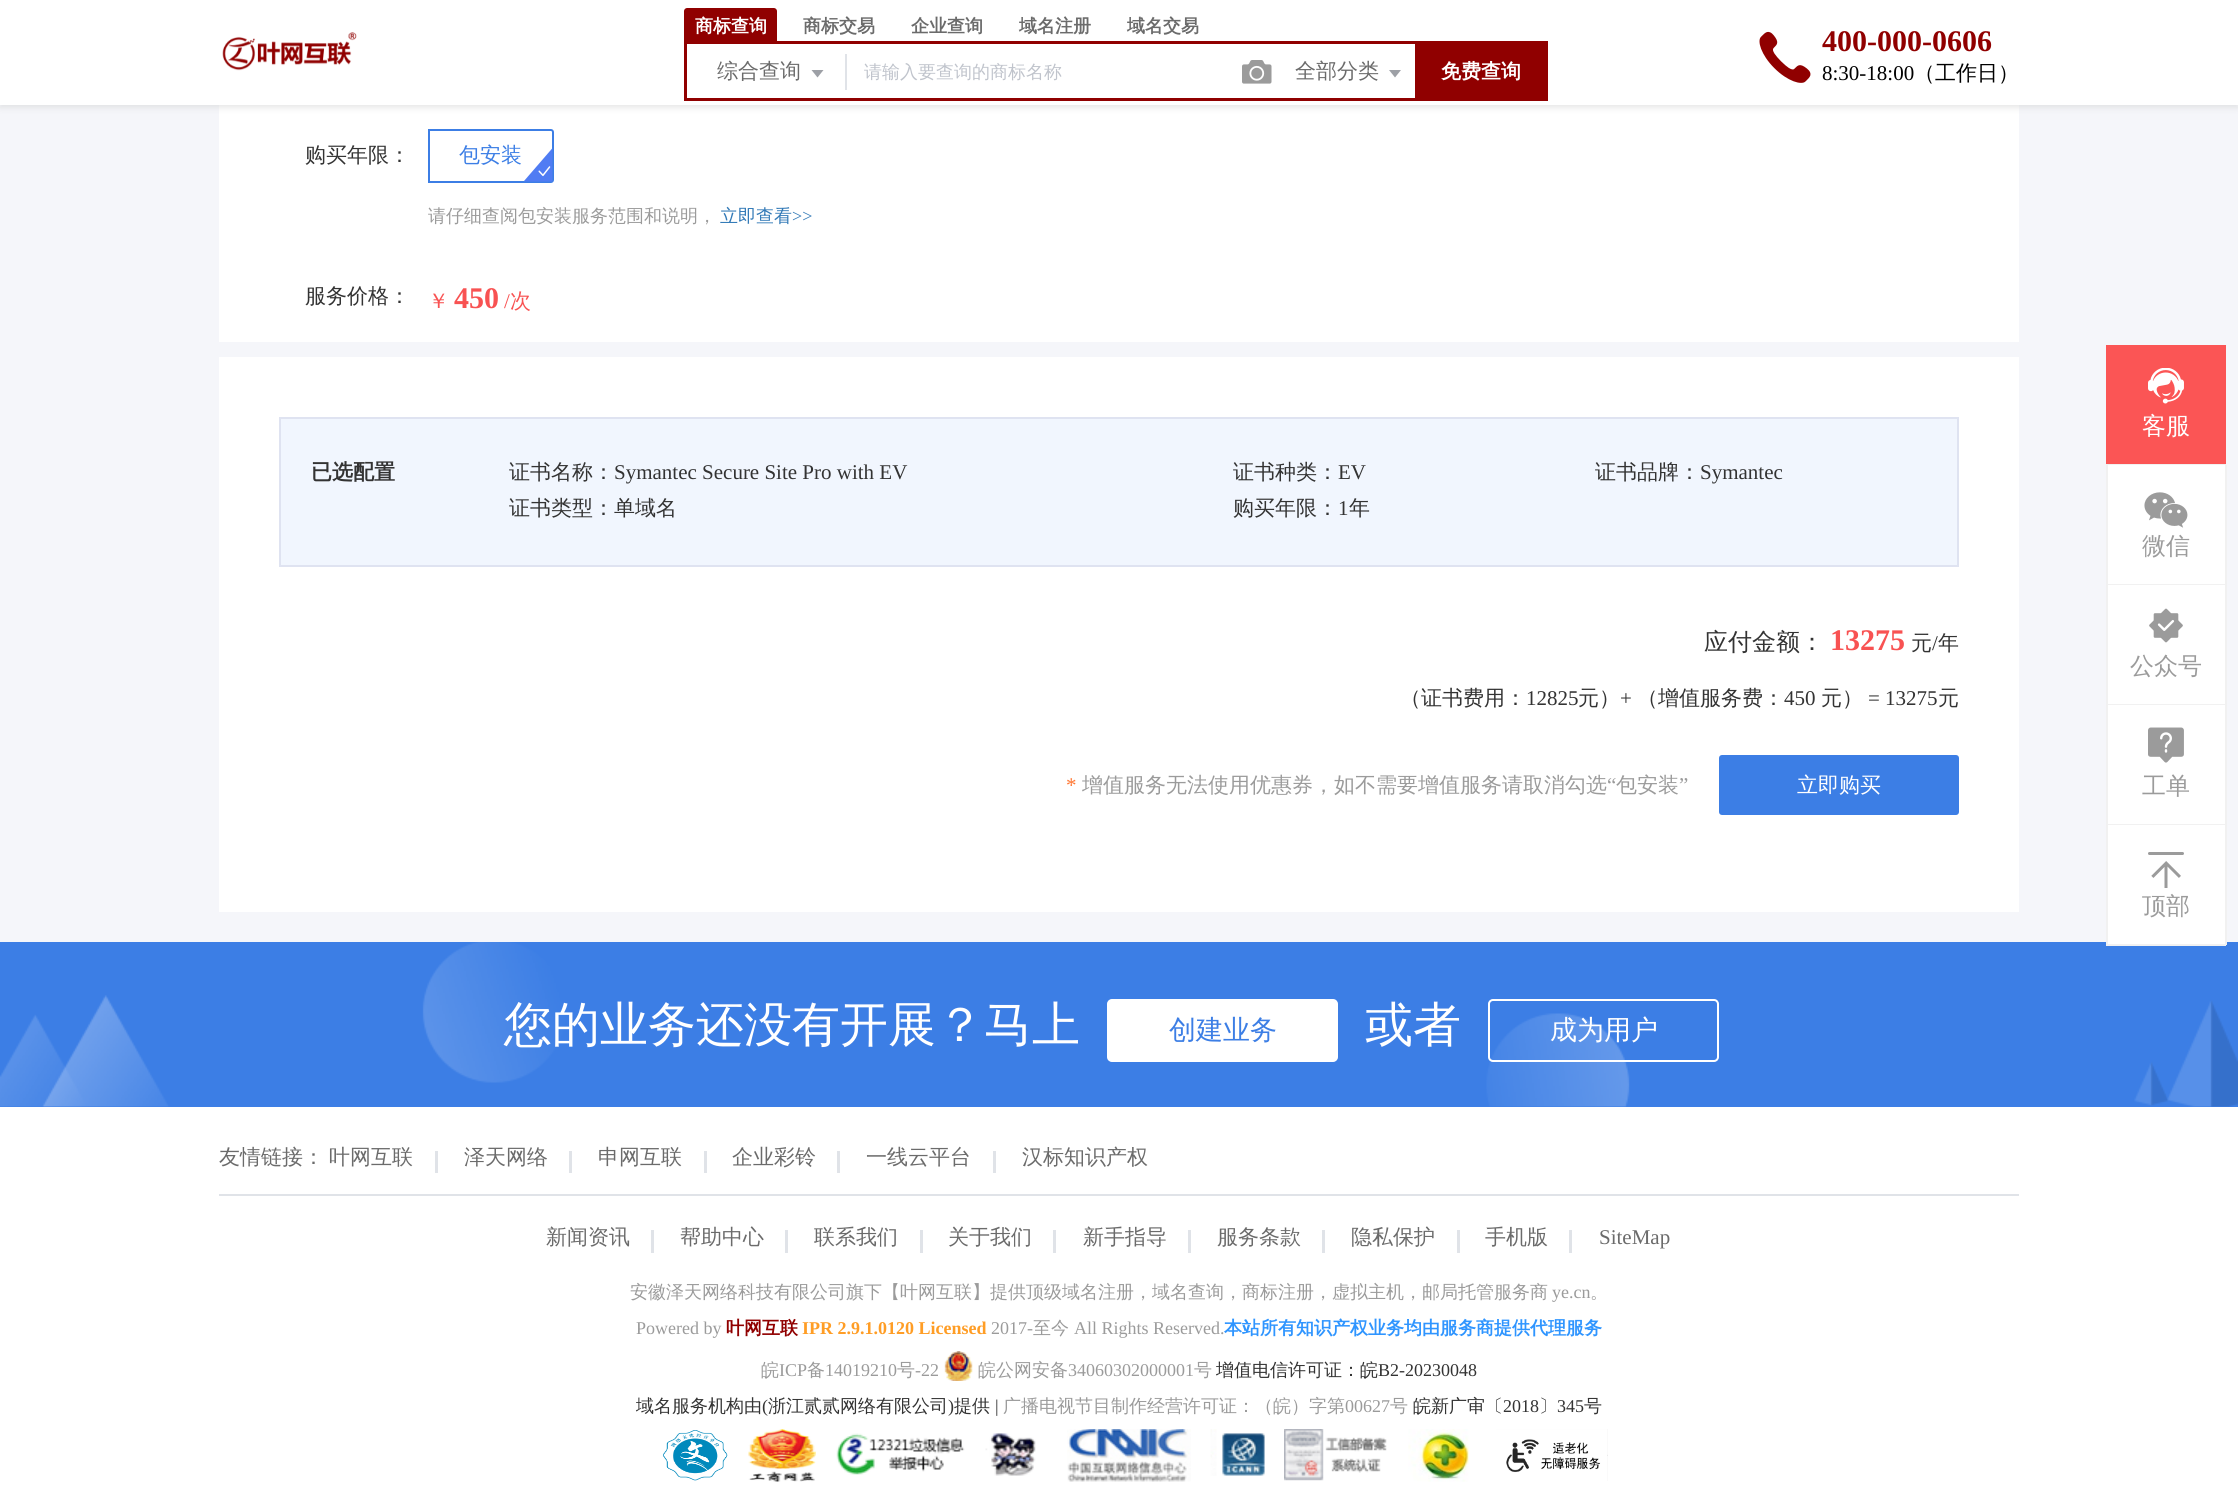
#include <cairo.h>
#include <math.h>
#include <stddef.h>


static void rgb(cairo_t *cr, int r, int g, int b)
{
	cairo_set_source_rgb(cr, r / 255.0, g / 255.0, b / 255.0);
}

static void face(cairo_t *cr, const char *family, double size, int italic, int bold)
{
	cairo_select_font_face(cr, family, italic ? CAIRO_FONT_SLANT_ITALIC : CAIRO_FONT_SLANT_NORMAL,
		bold ? CAIRO_FONT_WEIGHT_BOLD : CAIRO_FONT_WEIGHT_NORMAL);
	cairo_set_font_size(cr, size);
}

static void label(cairo_t *cr, double x, double y, const char *s)
{
	cairo_move_to(cr, x, y);
	cairo_show_text(cr, s);
}

static void rect(cairo_t *cr, double x, double y, double w, double h)
{
	cairo_rectangle(cr, x, y, w, h);
	cairo_fill(cr);
}

static void rrect(cairo_t *cr, double x, double y, double w, double h, double r)
{
	cairo_new_sub_path(cr);
	cairo_arc(cr, x + w - r, y + h - r, r, 0, M_PI / 2);
	cairo_arc(cr, x + r, y + h - r, r, M_PI / 2, M_PI);
	cairo_arc(cr, x + r, y + r, r, M_PI, 1.5 * M_PI);
	cairo_arc(cr, x + w - r, y + r, r, 1.5 * M_PI, 2 * M_PI);
	cairo_close_path(cr);
}

static void soft_shadow(cairo_t *cr, double x, double y, double w, double h, double r, double blur, double alpha)
{
	cairo_push_group_with_content(cr, CAIRO_CONTENT_ALPHA);
	cairo_set_operator(cr, CAIRO_OPERATOR_SOURCE);
	for (int i = 15; i >= -15 && fmin(w, h) + blur * i / 3 > 0; i -= 2) {
		double e = blur * i / 6;
		cairo_set_source_rgba(cr, 0, 0, 0, alpha * erfc((i - 1) / 8.5) / 2);
		rrect(cr, x - e, y - e, w + 2 * e, h + 2 * e, fmax(0, fmin(r + e + blur * .6, fmin(w, h) / 2 + e)));
		cairo_fill(cr);
	}
	cairo_pattern_t *soft = cairo_pop_group(cr);
	cairo_mask(cr, soft);
	cairo_pattern_destroy(soft);
}

static void image(cairo_t *cr, const char *path, double x, double y, double w, double h)
{
	cairo_surface_t *image = cairo_image_surface_create_from_png(path);
	cairo_save(cr);
	cairo_set_source_surface(cr, image, x, y);
	cairo_rectangle(cr, x, y, w, h);
	cairo_fill(cr);
	cairo_restore(cr);
	cairo_surface_destroy(image);
}

static void draw(cairo_t *cr) {
	rgb(cr, 245, 246, 250);
	cairo_paint(cr);
	rgb(cr, 255, 255, 255);
	rect(cr, 219, 105, 1800, 237);
	rgb(cr, 208, 208, 208);
	soft_shadow(cr, 0, 3, 2238, 105, 0, 3, 0.5);
	rgb(cr, 255, 255, 255);
	rect(cr, 0, 0, 2238, 105);
	image(cr, "image0.png", 222, 32, 135, 39);
	rgb(cr, 144, 0, 0);
	cairo_new_path(cr);
	cairo_move_to(cr, 687, 8);
	cairo_line_to(cr, 774, 8);
	cairo_curve_to(cr, 775.5, 8, 777, 9.5, 777, 11);
	cairo_line_to(cr, 777, 41);
	cairo_line_to(cr, 684, 41);
	cairo_line_to(cr, 684, 11);
	cairo_curve_to(cr, 684, 9.5, 685.5, 8, 687, 8);
	cairo_close_path(cr);
	cairo_fill(cr);
	face(cr, "WenQuanYi Zen Hei", 18, 0, 1);
	rgb(cr, 255, 255, 255);
	label(cr, 695, 32, "商标查询");
	rgb(cr, 107, 107, 107);
	label(cr, 803, 32, "商标交易");
	label(cr, 911, 32, "企业查询");
	label(cr, 1019, 32, "域名注册");
	label(cr, 1127, 32, "域名交易");
	rgb(cr, 144, 0, 0);
	rect(cr, 684, 41, 864, 3);
	rect(cr, 684, 98, 731, 3);
	rect(cr, 684, 41, 3, 60);
	rgb(cr, 224, 227, 232);
	rect(cr, 845, 54, 2, 36);
	face(cr, "WenQuanYi Zen Hei Medium", 21, 0, 0);
	rgb(cr, 107, 107, 107);
	label(cr, 717, 78, "综合查询");
	rgb(cr, 157, 160, 166);
	cairo_new_path(cr);
	cairo_move_to(cr, 811.5, 70);
	cairo_line_to(cr, 823.5, 70);
	cairo_line_to(cr, 817.5, 77.5);
	cairo_close_path(cr);
	cairo_fill(cr);
	face(cr, "WenQuanYi Zen Hei Medium", 18, 0, 0);
	rgb(cr, 192, 196, 204);
	label(cr, 864, 78, "请输入要查询的商标名称");
	image(cr, "image1.png", 1242, 60, 30, 24);
	face(cr, "WenQuanYi Zen Hei Medium", 21, 0, 0);
	rgb(cr, 107, 107, 107);
	label(cr, 1295, 78, "全部分类");
	rgb(cr, 157, 160, 166);
	cairo_new_path(cr);
	cairo_move_to(cr, 1389, 70);
	cairo_line_to(cr, 1401, 70);
	cairo_line_to(cr, 1395, 77.5);
	cairo_close_path(cr);
	cairo_fill(cr);
	rgb(cr, 144, 0, 0);
	rect(cr, 1415, 44, 133, 57);
	face(cr, "WenQuanYi Zen Hei", 20, 0, 1);
	rgb(cr, 255, 255, 255);
	label(cr, 1441, 78, "免费查询");
	image(cr, "image2.png", 1759, 31, 52, 52);
	face(cr, "Liberation Serif", 30, 0, 1);
	rgb(cr, 144, 0, 0);
	label(cr, 1822, 51, "400-000-0606");
	face(cr, "Liberation Serif", 21, 0, 0);
	rgb(cr, 0, 0, 0);
	label(cr, 1822, 80, "8:30-18:00");
	face(cr, "WenQuanYi Zen Hei Medium", 21, 0, 0);
	label(cr, 1914, 80, "（工作日）");
	rgb(cr, 51, 51, 51);
	label(cr, 305, 162, "购买年限：");
	cairo_new_path(cr);
	cairo_move_to(cr, 429, 130);
	cairo_line_to(cr, 551, 130);
	cairo_curve_to(cr, 552, 130, 553, 131, 553, 132);
	cairo_line_to(cr, 553, 180);
	cairo_curve_to(cr, 553, 181, 552, 182, 551, 182);
	cairo_line_to(cr, 429, 182);
	cairo_close_path(cr);
	rgb(cr, 60, 126, 229);
	cairo_stroke(cr);
	label(cr, 459, 162, "包安装");
	image(cr, "image3.png", 524, 148, 29, 34);
	face(cr, "WenQuanYi Zen Hei Medium", 18, 0, 0);
	rgb(cr, 155, 155, 155);
	label(cr, 428, 222, "请仔细查阅包安装服务范围和说明，");
	rgb(cr, 51, 122, 183);
	label(cr, 720, 222, "立即查看");
	face(cr, "Liberation Serif", 18, 0, 0);
	label(cr, 792, 222, ">>");
	face(cr, "WenQuanYi Zen Hei Medium", 21, 0, 0);
	rgb(cr, 51, 51, 51);
	label(cr, 305, 303, "服务价格：");
	rgb(cr, 248, 82, 82);
	label(cr, 428, 308, "￥");
	face(cr, "Liberation Serif", 30, 0, 1);
	label(cr, 454, 308, "450");
	face(cr, "Liberation Serif", 21, 0, 0);
	label(cr, 504, 308, "/");
	face(cr, "WenQuanYi Zen Hei Medium", 21, 0, 0);
	label(cr, 510, 308, "次");
	rgb(cr, 255, 255, 255);
	rect(cr, 219, 357, 1800, 555);
	rgb(cr, 241, 246, 254);
	cairo_rectangle(cr, 280, 418, 1678, 148);
	cairo_fill_preserve(cr);
	rgb(cr, 223, 227, 241);
	cairo_stroke(cr);
	face(cr, "WenQuanYi Zen Hei", 21, 0, 1);
	rgb(cr, 51, 51, 51);
	label(cr, 311, 479, "已选配置");
	face(cr, "WenQuanYi Zen Hei Medium", 21, 0, 0);
	label(cr, 509, 479, "证书名称：");
	face(cr, "Liberation Serif", 21, 0, 0);
	label(cr, 614, 479, "Symantec Secure Site Pro with EV");
	face(cr, "WenQuanYi Zen Hei Medium", 21, 0, 0);
	label(cr, 1233, 479, "证书种类：");
	face(cr, "Liberation Serif", 21, 0, 0);
	label(cr, 1338, 479, "EV");
	face(cr, "WenQuanYi Zen Hei Medium", 21, 0, 0);
	label(cr, 1595, 479, "证书品牌：");
	face(cr, "Liberation Serif", 21, 0, 0);
	label(cr, 1700, 479, "Symantec");
	face(cr, "WenQuanYi Zen Hei Medium", 21, 0, 0);
	label(cr, 509, 515, "证书类型：单域名");
	label(cr, 1233, 515, "购买年限：");
	face(cr, "Liberation Serif", 21, 0, 0);
	label(cr, 1338, 515, "1");
	face(cr, "WenQuanYi Zen Hei Medium", 21, 0, 0);
	label(cr, 1349, 515, "年");
	face(cr, "WenQuanYi Zen Hei Medium", 24, 0, 0);
	label(cr, 1704, 650, "应付金额：");
	face(cr, "Liberation Serif", 30, 0, 1);
	rgb(cr, 248, 82, 82);
	label(cr, 1830, 650, "13275");
	face(cr, "WenQuanYi Zen Hei Medium", 21, 0, 0);
	rgb(cr, 51, 51, 51);
	label(cr, 1911, 650, "元");
	face(cr, "Liberation Serif", 21, 0, 0);
	label(cr, 1932, 650, "/");
	face(cr, "WenQuanYi Zen Hei Medium", 21, 0, 0);
	label(cr, 1938, 650, "年");
	label(cr, 1400, 705, "（证书费用：");
	face(cr, "Liberation Serif", 21, 0, 0);
	label(cr, 1526, 705, "12825");
	face(cr, "WenQuanYi Zen Hei Medium", 21, 0, 0);
	label(cr, 1578, 705, "元）");
	face(cr, "Liberation Serif", 21, 0, 0);
	label(cr, 1620, 705, "+");
	face(cr, "WenQuanYi Zen Hei Medium", 21, 0, 0);
	label(cr, 1637, 705, "（增值服务费：");
	face(cr, "Liberation Serif", 21, 0, 0);
	label(cr, 1784, 705, "450");
	face(cr, "WenQuanYi Zen Hei Medium", 21, 0, 0);
	label(cr, 1821, 705, "元）");
	face(cr, "Liberation Serif", 21, 0, 0);
	label(cr, 1868, 705, "= 13275");
	face(cr, "WenQuanYi Zen Hei Medium", 21, 0, 0);
	label(cr, 1938, 705, "元");
	face(cr, "Liberation Serif", 21, 0, 0);
	rgb(cr, 255, 119, 51);
	label(cr, 1066, 792, "*");
	face(cr, "WenQuanYi Zen Hei Medium", 21, 0, 0);
	rgb(cr, 155, 155, 155);
	label(cr, 1082, 792, "增值服务无法使用优惠券，如不需要增值服务请取消勾选");
	face(cr, "Liberation Serif", 21, 0, 0);
	label(cr, 1607, 792, "“");
	face(cr, "WenQuanYi Zen Hei Medium", 21, 0, 0);
	label(cr, 1616, 792, "包安装");
	face(cr, "Liberation Serif", 21, 0, 0);
	label(cr, 1679, 792, "”");
	rgb(cr, 60, 126, 229);
	rrect(cr, 1720, 756, 238, 58, 2);
	cairo_fill_preserve(cr);
	cairo_stroke(cr);
	face(cr, "WenQuanYi Zen Hei Medium", 21, 0, 0);
	rgb(cr, 255, 255, 255);
	label(cr, 1797, 792, "立即购买");
	rgb(cr, 251, 85, 85);
	rect(cr, 2106, 345, 120, 119);
	rgb(cr, 241, 241, 241);
	rect(cr, 2106, 464, 120, 1);
	image(cr, "image4.png", 2148, 368, 36, 36);
	face(cr, "WenQuanYi Zen Hei Medium", 24, 0, 0);
	rgb(cr, 255, 255, 255);
	label(cr, 2142, 434, "客服");
	rect(cr, 2108, 465, 117, 119);
	rgb(cr, 60, 126, 229);
	rect(cr, 0, 942, 2238, 165);
	image(cr, "image9.png", 0, 942, 2238, 165);
	rgb(cr, 241, 241, 241);
	rect(cr, 2225, 465, 2, 480);
	rect(cr, 2106, 584, 120, 1);
	rect(cr, 2106, 465, 2, 120);
	image(cr, "image5.png", 2144, 492, 44, 36);
	rgb(cr, 155, 155, 155);
	label(cr, 2142, 554, "微信");
	rgb(cr, 255, 255, 255);
	rect(cr, 2108, 585, 117, 119);
	rgb(cr, 241, 241, 241);
	rect(cr, 2106, 704, 120, 1);
	rect(cr, 2106, 585, 2, 120);
	image(cr, "image6.png", 2149, 608, 34, 35);
	rgb(cr, 155, 155, 155);
	label(cr, 2130, 674, "公众号");
	rgb(cr, 255, 255, 255);
	rect(cr, 2108, 705, 117, 119);
	rgb(cr, 241, 241, 241);
	rect(cr, 2106, 824, 120, 1);
	rect(cr, 2106, 705, 2, 120);
	image(cr, "image7.png", 2148, 727, 36, 36);
	rgb(cr, 155, 155, 155);
	label(cr, 2142, 794, "工单");
	rgb(cr, 255, 255, 255);
	rect(cr, 2108, 825, 117, 119);
	rgb(cr, 241, 241, 241);
	rect(cr, 2106, 944, 120, 2);
	rect(cr, 2106, 825, 2, 120);
	image(cr, "image8.png", 2148, 852, 36, 36);
	rgb(cr, 155, 155, 155);
	label(cr, 2142, 914, "顶部");
	rgb(cr, 255, 255, 255);
	rect(cr, 0, 1107, 2238, 390);
	face(cr, "WenQuanYi Zen Hei Medium", 48, 0, 0);
	label(cr, 504, 1041, "您的业务还没有开展？马上");
	rrect(cr, 1108, 1000, 229, 61, 4);
	cairo_fill_preserve(cr);
	cairo_stroke(cr);
	face(cr, "WenQuanYi Zen Hei Medium", 27, 0, 0);
	rgb(cr, 60, 126, 229);
	label(cr, 1169, 1039, "创建业务");
	face(cr, "WenQuanYi Zen Hei Medium", 48, 0, 0);
	rgb(cr, 255, 255, 255);
	label(cr, 1365, 1041, "或者");
	rrect(cr, 1489, 1000, 229, 61, 4);
	cairo_stroke(cr);
	face(cr, "WenQuanYi Zen Hei Medium", 27, 0, 0);
	label(cr, 1550, 1039, "成为用户");
	rgb(cr, 224, 227, 232);
	rect(cr, 219, 1194, 1800, 2);
	face(cr, "WenQuanYi Zen Hei Medium", 21, 0, 0);
	rgb(cr, 107, 107, 107);
	label(cr, 219, 1164, "友情链接：");
	label(cr, 329, 1164, "叶网互联");
	rgb(cr, 224, 227, 232);
	rect(cr, 435, 1151, 3, 22);
	rgb(cr, 107, 107, 107);
	label(cr, 464, 1164, "泽天网络");
	rgb(cr, 224, 227, 232);
	rect(cr, 569, 1151, 3, 22);
	rgb(cr, 107, 107, 107);
	label(cr, 598, 1164, "申网互联");
	rgb(cr, 224, 227, 232);
	rect(cr, 704, 1151, 3, 22);
	rgb(cr, 107, 107, 107);
	label(cr, 732, 1164, "企业彩铃");
	rgb(cr, 224, 227, 232);
	rect(cr, 837, 1151, 3, 22);
	rgb(cr, 107, 107, 107);
	label(cr, 866, 1164, "一线云平台");
	rgb(cr, 224, 227, 232);
	rect(cr, 993, 1151, 3, 22);
	rgb(cr, 107, 107, 107);
	label(cr, 1022, 1164, "汉标知识产权");
	label(cr, 546, 1244, "新闻资讯");
	rgb(cr, 224, 227, 232);
	rect(cr, 651, 1230, 3, 23);
	rgb(cr, 107, 107, 107);
	label(cr, 680, 1244, "帮助中心");
	rgb(cr, 224, 227, 232);
	rect(cr, 785, 1230, 3, 23);
	rgb(cr, 107, 107, 107);
	label(cr, 814, 1244, "联系我们");
	rgb(cr, 224, 227, 232);
	rect(cr, 920, 1230, 3, 23);
	rgb(cr, 107, 107, 107);
	label(cr, 948, 1244, "关于我们");
	rgb(cr, 224, 227, 232);
	rect(cr, 1053, 1230, 3, 23);
	rgb(cr, 107, 107, 107);
	label(cr, 1083, 1244, "新手指导");
	rgb(cr, 224, 227, 232);
	rect(cr, 1188, 1230, 3, 23);
	rgb(cr, 107, 107, 107);
	label(cr, 1217, 1244, "服务条款");
	rgb(cr, 224, 227, 232);
	rect(cr, 1322, 1230, 3, 23);
	rgb(cr, 107, 107, 107);
	label(cr, 1351, 1244, "隐私保护");
	rgb(cr, 224, 227, 232);
	rect(cr, 1457, 1230, 3, 23);
	rgb(cr, 107, 107, 107);
	label(cr, 1485, 1244, "手机版");
	rgb(cr, 224, 227, 232);
	rect(cr, 1569, 1230, 3, 23);
	face(cr, "Liberation Serif", 21, 0, 0);
	rgb(cr, 107, 107, 107);
	label(cr, 1599, 1244, "SiteMap");
	face(cr, "WenQuanYi Zen Hei Medium", 18, 0, 0);
	rgb(cr, 155, 155, 155);
	label(cr, 630, 1298, "安徽泽天网络科技有限公司旗下【叶网互联】提供顶级域名注册，域名查询，商标注册，虚拟主机，邮局托管服务商");
	face(cr, "Liberation Serif", 18, 0, 0);
	label(cr, 1552, 1298, "ye.cn");
	face(cr, "WenQuanYi Zen Hei Medium", 18, 0, 0);
	label(cr, 1590, 1298, "。");
	face(cr, "Liberation Serif", 18, 0, 0);
	label(cr, 636, 1334, "Powered by");
	face(cr, "WenQuanYi Zen Hei", 18, 0, 1);
	rgb(cr, 144, 0, 0);
	label(cr, 726, 1334, "叶网互联");
	face(cr, "Liberation Serif", 18, 0, 1);
	rgb(cr, 255, 157, 37);
	label(cr, 802, 1334, "IPR 2.9.1.0120 Licensed");
	face(cr, "Liberation Serif", 18, 0, 0);
	rgb(cr, 155, 155, 155);
	label(cr, 991, 1334, "2017-");
	face(cr, "WenQuanYi Zen Hei Medium", 18, 0, 0);
	label(cr, 1033, 1334, "至今");
	face(cr, "Liberation Serif", 18, 0, 0);
	label(cr, 1074, 1334, "All Rights Reserved.");
	face(cr, "WenQuanYi Zen Hei", 18, 0, 1);
	rgb(cr, 47, 149, 255);
	label(cr, 1224, 1334, "本站所有知识产权业务均由服务商提供代理服务");
	face(cr, "WenQuanYi Zen Hei Medium", 18, 0, 0);
	rgb(cr, 155, 155, 155);
	label(cr, 761, 1376, "皖");
	face(cr, "Liberation Serif", 18, 0, 0);
	label(cr, 779, 1376, "ICP");
	face(cr, "WenQuanYi Zen Hei Medium", 18, 0, 0);
	label(cr, 807, 1376, "备");
	face(cr, "Liberation Serif", 18, 0, 0);
	label(cr, 825, 1376, "14019210");
	face(cr, "WenQuanYi Zen Hei Medium", 18, 0, 0);
	label(cr, 897, 1376, "号");
	face(cr, "Liberation Serif", 18, 0, 0);
	label(cr, 915, 1376, "-22");
	image(cr, "image10.png", 944, 1351, 29, 30);
	face(cr, "WenQuanYi Zen Hei Medium", 18, 0, 0);
	label(cr, 978, 1376, "皖公网安备");
	face(cr, "Liberation Serif", 18, 0, 0);
	label(cr, 1068, 1376, "34060302000001");
	face(cr, "WenQuanYi Zen Hei Medium", 18, 0, 0);
	label(cr, 1194, 1376, "号");
	rgb(cr, 51, 51, 51);
	label(cr, 1216, 1376, "增值电信许可证：皖");
	face(cr, "Liberation Serif", 18, 0, 0);
	label(cr, 1378, 1376, "B2-20230048");
	face(cr, "WenQuanYi Zen Hei Medium", 18, 0, 0);
	label(cr, 636, 1412, "域名服务机构由");
	face(cr, "Liberation Serif", 18, 0, 0);
	label(cr, 762, 1412, "(");
	face(cr, "WenQuanYi Zen Hei Medium", 18, 0, 0);
	label(cr, 768, 1412, "浙江贰贰网络有限公司");
	face(cr, "Liberation Serif", 18, 0, 0);
	label(cr, 948, 1412, ")");
	face(cr, "WenQuanYi Zen Hei Medium", 18, 0, 0);
	label(cr, 954, 1412, "提供");
	face(cr, "Liberation Serif", 18, 0, 0);
	label(cr, 995, 1412, "|");
	face(cr, "WenQuanYi Zen Hei Medium", 18, 0, 0);
	rgb(cr, 155, 155, 155);
	label(cr, 1003, 1412, "广播电视节目制作经营许可证：（皖）字第");
	face(cr, "Liberation Serif", 18, 0, 0);
	label(cr, 1345, 1412, "00627");
	face(cr, "WenQuanYi Zen Hei Medium", 18, 0, 0);
	label(cr, 1390, 1412, "号");
	rgb(cr, 51, 51, 51);
	label(cr, 1413, 1412, "皖新广审〔");
	face(cr, "Liberation Serif", 18, 0, 0);
	label(cr, 1503, 1412, "2018");
	face(cr, "WenQuanYi Zen Hei Medium", 18, 0, 0);
	label(cr, 1539, 1412, "〕");
	face(cr, "Liberation Serif", 18, 0, 0);
	label(cr, 1557, 1412, "345");
	face(cr, "WenQuanYi Zen Hei Medium", 18, 0, 0);
	label(cr, 1584, 1412, "号");
	image(cr, "image11.png", 662, 1430, 66, 51);
	image(cr, "image12.png", 748, 1429, 68, 53);
	image(cr, "image13.png", 836, 1433, 129, 42);
	image(cr, "image14.png", 985, 1433, 51, 43);
	image(cr, "image15.png", 1067, 1429, 124, 53);
	image(cr, "image16.png", 1210, 1429, 55, 47);
	image(cr, "image17.png", 1284, 1429, 103, 52);
	image(cr, "image18.png", 1408, 1429, 68, 53);
	image(cr, "image19.png", 1496, 1429, 112, 52);
}

int main(void) {
	cairo_surface_t *surface = cairo_image_surface_create(CAIRO_FORMAT_RGB24, 2238, 1497);
	cairo_t *cr = cairo_create(surface);
	cairo_font_options_t *options = cairo_font_options_create();
	cairo_font_options_set_hint_metrics(options, CAIRO_HINT_METRICS_OFF);
	cairo_font_options_set_hint_style(options, CAIRO_HINT_STYLE_NONE);
	cairo_set_font_options(cr, options);
	cairo_set_miter_limit(cr, 4);
	draw(cr);
	cairo_surface_write_to_png(surface, "render.png");
	cairo_font_options_destroy(options);
	cairo_destroy(cr);
	cairo_surface_destroy(surface);
	return 0;
}
